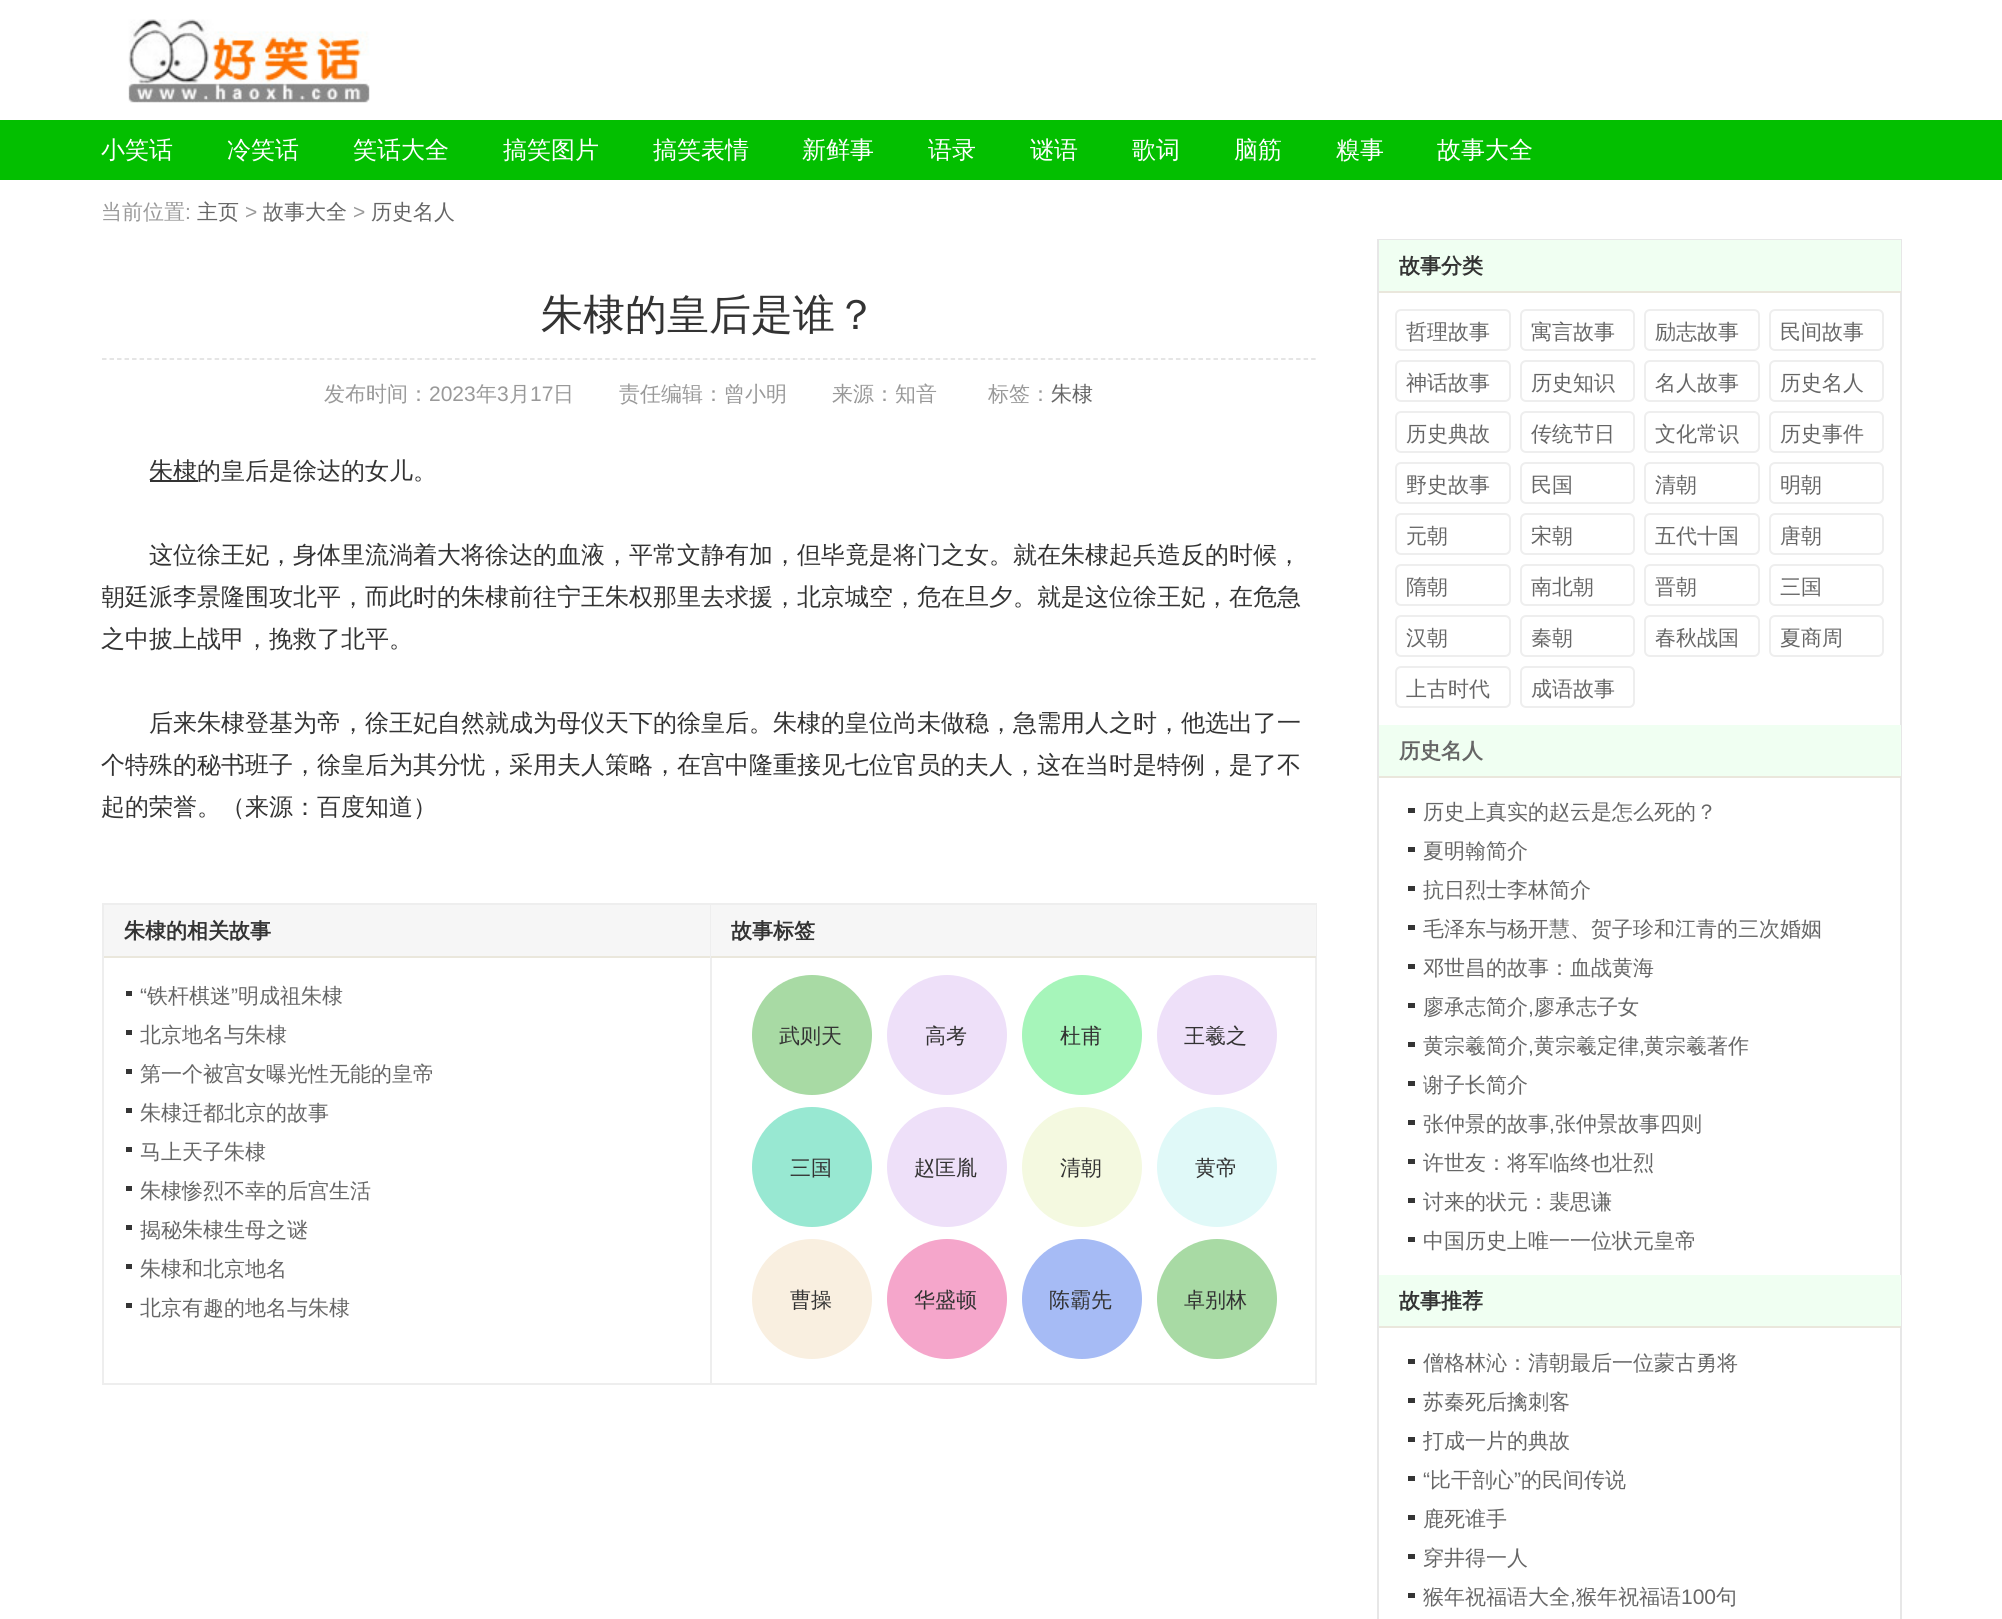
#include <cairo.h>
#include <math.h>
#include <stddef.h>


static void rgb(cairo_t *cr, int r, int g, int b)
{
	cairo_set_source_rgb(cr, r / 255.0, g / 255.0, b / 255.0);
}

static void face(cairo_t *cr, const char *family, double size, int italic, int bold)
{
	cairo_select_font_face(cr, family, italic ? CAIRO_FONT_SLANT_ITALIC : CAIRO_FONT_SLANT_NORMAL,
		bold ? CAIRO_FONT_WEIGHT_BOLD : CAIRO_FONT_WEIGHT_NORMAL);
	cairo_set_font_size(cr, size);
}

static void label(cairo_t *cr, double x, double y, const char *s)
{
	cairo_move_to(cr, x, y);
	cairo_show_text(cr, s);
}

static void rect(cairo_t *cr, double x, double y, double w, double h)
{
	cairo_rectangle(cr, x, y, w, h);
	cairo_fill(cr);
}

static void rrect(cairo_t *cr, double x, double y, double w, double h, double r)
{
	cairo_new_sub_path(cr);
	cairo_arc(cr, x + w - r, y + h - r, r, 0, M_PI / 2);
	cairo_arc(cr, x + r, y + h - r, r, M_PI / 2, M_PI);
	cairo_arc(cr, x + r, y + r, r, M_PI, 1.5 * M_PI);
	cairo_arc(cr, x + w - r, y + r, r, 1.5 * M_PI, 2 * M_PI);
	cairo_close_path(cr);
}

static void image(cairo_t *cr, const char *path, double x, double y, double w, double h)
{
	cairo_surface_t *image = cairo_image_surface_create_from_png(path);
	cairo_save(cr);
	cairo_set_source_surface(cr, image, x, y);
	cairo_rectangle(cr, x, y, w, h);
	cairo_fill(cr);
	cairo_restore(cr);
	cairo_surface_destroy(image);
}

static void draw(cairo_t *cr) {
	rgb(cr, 255, 255, 255);
	cairo_paint(cr);
	image(cr, "image0.png", 128, 19, 242, 84);
	rgb(cr, 3, 191, 0);
	rect(cr, 0, 120, 2002, 60);
	face(cr, "WenQuanYi Zen Hei Medium", 24, 0, 0);
	rgb(cr, 255, 255, 255);
	label(cr, 101, 158, "小笑话");
	label(cr, 227, 158, "冷笑话");
	label(cr, 353, 158, "笑话大全");
	label(cr, 503, 158, "搞笑图片");
	label(cr, 653, 158, "搞笑表情");
	label(cr, 802, 158, "新鲜事");
	label(cr, 928, 158, "语录");
	label(cr, 1030, 158, "谜语");
	label(cr, 1132, 158, "歌词");
	label(cr, 1234, 158, "脑筋");
	label(cr, 1336, 158, "糗事");
	label(cr, 1437, 158, "故事大全");
	face(cr, "WenQuanYi Zen Hei Medium", 21, 0, 0);
	rgb(cr, 153, 153, 153);
	label(cr, 101, 219, "当前位置");
	face(cr, "Liberation Sans", 21, 0, 0);
	label(cr, 185, 219, ":");
	face(cr, "WenQuanYi Zen Hei Medium", 21, 0, 0);
	rgb(cr, 102, 102, 102);
	label(cr, 197, 219, "主页");
	face(cr, "Liberation Sans", 21, 0, 0);
	rgb(cr, 153, 153, 153);
	label(cr, 245, 219, ">");
	face(cr, "WenQuanYi Zen Hei Medium", 21, 0, 0);
	rgb(cr, 102, 102, 102);
	label(cr, 263, 219, "故事大全");
	face(cr, "Liberation Sans", 21, 0, 0);
	rgb(cr, 153, 153, 153);
	label(cr, 353, 219, ">");
	face(cr, "WenQuanYi Zen Hei Medium", 21, 0, 0);
	rgb(cr, 102, 102, 102);
	label(cr, 371, 219, "历史名人");
	cairo_new_path(cr);
	cairo_move_to(cr, 102, 359);
	cairo_line_to(cr, 1317, 359);
	rgb(cr, 221, 221, 221);
	cairo_set_line_width(cr, 1.5);
	cairo_set_dash(cr, (double[]){4.5, 3.01}, 2, 0);
	cairo_stroke(cr);
	face(cr, "WenQuanYi Zen Hei Medium", 42, 0, 0);
	rgb(cr, 51, 51, 51);
	label(cr, 541, 329, "朱棣的皇后是谁？");
	face(cr, "WenQuanYi Zen Hei Medium", 21, 0, 0);
	rgb(cr, 153, 153, 153);
	label(cr, 324, 401, "发布时间：");
	face(cr, "Liberation Sans", 21, 0, 0);
	label(cr, 429, 401, "2023");
	face(cr, "WenQuanYi Zen Hei Medium", 21, 0, 0);
	label(cr, 476, 401, "年");
	face(cr, "Liberation Sans", 21, 0, 0);
	label(cr, 497, 401, "3");
	face(cr, "WenQuanYi Zen Hei Medium", 21, 0, 0);
	label(cr, 509, 401, "月");
	face(cr, "Liberation Sans", 21, 0, 0);
	label(cr, 530, 401, "17");
	face(cr, "WenQuanYi Zen Hei Medium", 21, 0, 0);
	label(cr, 553, 401, "日");
	label(cr, 619, 401, "责任编辑：曾小明");
	label(cr, 832, 401, "来源：知音");
	label(cr, 988, 401, "标签：");
	rgb(cr, 102, 102, 102);
	label(cr, 1051, 401, "朱棣");
	rgb(cr, 51, 51, 51);
	rect(cr, 150, 480, 48, 2);
	face(cr, "WenQuanYi Zen Hei Medium", 24, 0, 0);
	label(cr, 149, 479, "朱棣的皇后是徐达的女儿。");
	label(cr, 149, 563, "这位徐王妃，身体里流淌着大将徐达的血液，平常文静有加，但毕竟是将门之女。就在朱棣起兵造反的时候，");
	cairo_save(cr);
	cairo_rectangle(cr, 102, 239, 1800, 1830);
	cairo_clip(cr);
	label(cr, 101, 605, "朝廷派李景隆围攻北平，而此时的朱棣前往宁王朱权那里去求援，北京城空，危在旦夕。就是这位徐王妃，在危急");
	cairo_restore(cr);
	label(cr, 101, 647, "之中披上战甲，挽救了北平。");
	label(cr, 149, 731, "后来朱棣登基为帝，徐王妃自然就成为母仪天下的徐皇后。朱棣的皇位尚未做稳，急需用人之时，他选出了一");
	label(cr, 101, 773, "个特殊的秘书班子，徐皇后为其分忧，采用夫人策略，在宫中隆重接见七位官员的夫人，这在当时是特例，是了不");
	label(cr, 101, 815, "起的荣誉。（来源：百度知道）");
	cairo_rectangle(cr, 103, 904, 1213, 480);
	rgb(cr, 238, 238, 238);
	cairo_set_line_width(cr, 2);
	cairo_set_dash(cr, NULL, 0, 0);
	cairo_stroke(cr);
	rgb(cr, 246, 246, 246);
	rect(cr, 104, 905, 606, 51);
	rgb(cr, 234, 231, 220);
	rect(cr, 104, 956, 606, 2);
	face(cr, "WenQuanYi Zen Hei", 21, 0, 1);
	rgb(cr, 51, 51, 51);
	label(cr, 124, 938, "朱棣的相关故事");
	rgb(cr, 53, 53, 53);
	rect(cr, 126, 991, 6, 5);
	face(cr, "Liberation Sans", 21, 0, 0);
	rgb(cr, 102, 102, 102);
	label(cr, 140, 1003, "“");
	face(cr, "WenQuanYi Zen Hei Medium", 21, 0, 0);
	label(cr, 147, 1003, "铁杆棋迷");
	face(cr, "Liberation Sans", 21, 0, 0);
	label(cr, 231, 1003, "”");
	face(cr, "WenQuanYi Zen Hei Medium", 21, 0, 0);
	label(cr, 238, 1003, "明成祖朱棣");
	rgb(cr, 53, 53, 53);
	rect(cr, 126, 1030, 6, 5);
	rgb(cr, 102, 102, 102);
	label(cr, 140, 1042, "北京地名与朱棣");
	rgb(cr, 53, 53, 53);
	rect(cr, 126, 1069, 6, 5);
	rgb(cr, 102, 102, 102);
	label(cr, 140, 1081, "第一个被宫女曝光性无能的皇帝");
	rgb(cr, 53, 53, 53);
	rect(cr, 126, 1108, 6, 5);
	rgb(cr, 102, 102, 102);
	label(cr, 140, 1120, "朱棣迁都北京的故事");
	rgb(cr, 53, 53, 53);
	rect(cr, 126, 1147, 6, 5);
	rgb(cr, 102, 102, 102);
	label(cr, 140, 1159, "马上天子朱棣");
	rgb(cr, 53, 53, 53);
	rect(cr, 126, 1186, 6, 5);
	rgb(cr, 102, 102, 102);
	label(cr, 140, 1198, "朱棣惨烈不幸的后宫生活");
	rgb(cr, 53, 53, 53);
	rect(cr, 126, 1225, 6, 5);
	rgb(cr, 102, 102, 102);
	label(cr, 140, 1237, "揭秘朱棣生母之谜");
	rgb(cr, 53, 53, 53);
	rect(cr, 126, 1264, 6, 5);
	rgb(cr, 102, 102, 102);
	label(cr, 140, 1276, "朱棣和北京地名");
	rgb(cr, 53, 53, 53);
	rect(cr, 126, 1303, 6, 5);
	rgb(cr, 102, 102, 102);
	label(cr, 140, 1315, "北京有趣的地名与朱棣");
	rgb(cr, 238, 238, 238);
	rect(cr, 710, 905, 2, 478);
	rgb(cr, 246, 246, 246);
	rect(cr, 711, 905, 605, 51);
	rgb(cr, 234, 231, 220);
	rect(cr, 711, 956, 605, 2);
	face(cr, "WenQuanYi Zen Hei", 21, 0, 1);
	rgb(cr, 51, 51, 51);
	label(cr, 731, 938, "故事标签");
	rgb(cr, 168, 218, 164);
	cairo_new_path(cr);
	cairo_arc(cr, 812, 1035, 60, 0, 2 * M_PI);
	cairo_fill(cr);
	face(cr, "WenQuanYi Zen Hei Medium", 21, 0, 0);
	rgb(cr, 51, 51, 51);
	label(cr, 779, 1043, "武则天");
	rgb(cr, 238, 224, 249);
	cairo_new_path(cr);
	cairo_arc(cr, 947, 1035, 60, 0, 2 * M_PI);
	cairo_fill(cr);
	rgb(cr, 51, 51, 51);
	label(cr, 925, 1043, "高考");
	rgb(cr, 166, 245, 186);
	cairo_new_path(cr);
	cairo_arc(cr, 1082, 1035, 60, 0, 2 * M_PI);
	cairo_fill(cr);
	rgb(cr, 51, 51, 51);
	label(cr, 1060, 1043, "杜甫");
	rgb(cr, 238, 224, 249);
	cairo_new_path(cr);
	cairo_arc(cr, 1217, 1035, 60, 0, 2 * M_PI);
	cairo_fill(cr);
	rgb(cr, 51, 51, 51);
	label(cr, 1184, 1043, "王羲之");
	rgb(cr, 152, 232, 210);
	cairo_new_path(cr);
	cairo_arc(cr, 812, 1167, 60, 0, 2 * M_PI);
	cairo_fill(cr);
	rgb(cr, 51, 51, 51);
	label(cr, 790, 1175, "三国");
	rgb(cr, 238, 224, 249);
	cairo_new_path(cr);
	cairo_arc(cr, 947, 1167, 60, 0, 2 * M_PI);
	cairo_fill(cr);
	rgb(cr, 51, 51, 51);
	label(cr, 914, 1175, "赵匡胤");
	rgb(cr, 244, 249, 224);
	cairo_new_path(cr);
	cairo_arc(cr, 1082, 1167, 60, 0, 2 * M_PI);
	cairo_fill(cr);
	rgb(cr, 51, 51, 51);
	label(cr, 1060, 1175, "清朝");
	rgb(cr, 224, 249, 248);
	cairo_new_path(cr);
	cairo_arc(cr, 1217, 1167, 60, 0, 2 * M_PI);
	cairo_fill(cr);
	rgb(cr, 51, 51, 51);
	label(cr, 1195, 1175, "黄帝");
	rgb(cr, 249, 239, 224);
	cairo_new_path(cr);
	cairo_arc(cr, 812, 1299, 60, 0, 2 * M_PI);
	cairo_fill(cr);
	rgb(cr, 51, 51, 51);
	label(cr, 790, 1307, "曹操");
	rgb(cr, 245, 166, 203);
	cairo_new_path(cr);
	cairo_arc(cr, 947, 1299, 60, 0, 2 * M_PI);
	cairo_fill(cr);
	rgb(cr, 51, 51, 51);
	label(cr, 914, 1307, "华盛顿");
	rgb(cr, 166, 187, 245);
	cairo_new_path(cr);
	cairo_arc(cr, 1082, 1299, 60, 0, 2 * M_PI);
	cairo_fill(cr);
	rgb(cr, 51, 51, 51);
	label(cr, 1049, 1307, "陈霸先");
	rgb(cr, 168, 218, 164);
	cairo_new_path(cr);
	cairo_arc(cr, 1217, 1299, 60, 0, 2 * M_PI);
	cairo_fill(cr);
	rgb(cr, 51, 51, 51);
	label(cr, 1184, 1307, "卓别林");
	cairo_rectangle(cr, 1378, 240, 523, 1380);
	rgb(cr, 231, 231, 231);
	cairo_stroke(cr);
	rgb(cr, 240, 255, 242);
	rect(cr, 1379, 240, 522, 51);
	rgb(cr, 234, 231, 220);
	rect(cr, 1379, 291, 522, 2);
	face(cr, "WenQuanYi Zen Hei", 21, 0, 1);
	rgb(cr, 51, 51, 51);
	label(cr, 1399, 273, "故事分类");
	rrect(cr, 1396, 310, 114, 40, 5);
	rgb(cr, 238, 238, 238);
	cairo_stroke(cr);
	face(cr, "WenQuanYi Zen Hei Medium", 21, 0, 0);
	rgb(cr, 102, 102, 102);
	label(cr, 1406, 339, "哲理故事");
	rrect(cr, 1521, 310, 113, 40, 5);
	rgb(cr, 238, 238, 238);
	cairo_stroke(cr);
	rgb(cr, 102, 102, 102);
	label(cr, 1531, 339, "寓言故事");
	rrect(cr, 1645, 310, 114, 40, 5);
	rgb(cr, 238, 238, 238);
	cairo_stroke(cr);
	rgb(cr, 102, 102, 102);
	label(cr, 1655, 339, "励志故事");
	rrect(cr, 1770, 310, 113, 40, 5);
	rgb(cr, 238, 238, 238);
	cairo_stroke(cr);
	rgb(cr, 102, 102, 102);
	label(cr, 1780, 339, "民间故事");
	rrect(cr, 1396, 361, 114, 40, 5);
	rgb(cr, 238, 238, 238);
	cairo_stroke(cr);
	rgb(cr, 102, 102, 102);
	label(cr, 1406, 390, "神话故事");
	rrect(cr, 1521, 361, 113, 40, 5);
	rgb(cr, 238, 238, 238);
	cairo_stroke(cr);
	rgb(cr, 102, 102, 102);
	label(cr, 1531, 390, "历史知识");
	rrect(cr, 1645, 361, 114, 40, 5);
	rgb(cr, 238, 238, 238);
	cairo_stroke(cr);
	rgb(cr, 102, 102, 102);
	label(cr, 1655, 390, "名人故事");
	rrect(cr, 1770, 361, 113, 40, 5);
	rgb(cr, 238, 238, 238);
	cairo_stroke(cr);
	rgb(cr, 102, 102, 102);
	label(cr, 1780, 390, "历史名人");
	rrect(cr, 1396, 412, 114, 40, 5);
	rgb(cr, 238, 238, 238);
	cairo_stroke(cr);
	rgb(cr, 102, 102, 102);
	label(cr, 1406, 441, "历史典故");
	rrect(cr, 1521, 412, 113, 40, 5);
	rgb(cr, 238, 238, 238);
	cairo_stroke(cr);
	rgb(cr, 102, 102, 102);
	label(cr, 1531, 441, "传统节日");
	rrect(cr, 1645, 412, 114, 40, 5);
	rgb(cr, 238, 238, 238);
	cairo_stroke(cr);
	rgb(cr, 102, 102, 102);
	label(cr, 1655, 441, "文化常识");
	rrect(cr, 1770, 412, 113, 40, 5);
	rgb(cr, 238, 238, 238);
	cairo_stroke(cr);
	rgb(cr, 102, 102, 102);
	label(cr, 1780, 441, "历史事件");
	rrect(cr, 1396, 463, 114, 40, 5);
	rgb(cr, 238, 238, 238);
	cairo_stroke(cr);
	rgb(cr, 102, 102, 102);
	label(cr, 1406, 492, "野史故事");
	rrect(cr, 1521, 463, 113, 40, 5);
	rgb(cr, 238, 238, 238);
	cairo_stroke(cr);
	rgb(cr, 102, 102, 102);
	label(cr, 1531, 492, "民国");
	rrect(cr, 1645, 463, 114, 40, 5);
	rgb(cr, 238, 238, 238);
	cairo_stroke(cr);
	rgb(cr, 102, 102, 102);
	label(cr, 1655, 492, "清朝");
	rrect(cr, 1770, 463, 113, 40, 5);
	rgb(cr, 238, 238, 238);
	cairo_stroke(cr);
	rgb(cr, 102, 102, 102);
	label(cr, 1780, 492, "明朝");
	rrect(cr, 1396, 514, 114, 40, 5);
	rgb(cr, 238, 238, 238);
	cairo_stroke(cr);
	rgb(cr, 102, 102, 102);
	label(cr, 1406, 543, "元朝");
	rrect(cr, 1521, 514, 113, 40, 5);
	rgb(cr, 238, 238, 238);
	cairo_stroke(cr);
	rgb(cr, 102, 102, 102);
	label(cr, 1531, 543, "宋朝");
	rrect(cr, 1645, 514, 114, 40, 5);
	rgb(cr, 238, 238, 238);
	cairo_stroke(cr);
	rgb(cr, 102, 102, 102);
	label(cr, 1655, 543, "五代十国");
	rrect(cr, 1770, 514, 113, 40, 5);
	rgb(cr, 238, 238, 238);
	cairo_stroke(cr);
	rgb(cr, 102, 102, 102);
	label(cr, 1780, 543, "唐朝");
	rrect(cr, 1396, 565, 114, 40, 5);
	rgb(cr, 238, 238, 238);
	cairo_stroke(cr);
	rgb(cr, 102, 102, 102);
	label(cr, 1406, 594, "隋朝");
	rrect(cr, 1521, 565, 113, 40, 5);
	rgb(cr, 238, 238, 238);
	cairo_stroke(cr);
	rgb(cr, 102, 102, 102);
	label(cr, 1531, 594, "南北朝");
	rrect(cr, 1645, 565, 114, 40, 5);
	rgb(cr, 238, 238, 238);
	cairo_stroke(cr);
	rgb(cr, 102, 102, 102);
	label(cr, 1655, 594, "晋朝");
	rrect(cr, 1770, 565, 113, 40, 5);
	rgb(cr, 238, 238, 238);
	cairo_stroke(cr);
	rgb(cr, 102, 102, 102);
	label(cr, 1780, 594, "三国");
	rrect(cr, 1396, 616, 114, 40, 5);
	rgb(cr, 238, 238, 238);
	cairo_stroke(cr);
	rgb(cr, 102, 102, 102);
	label(cr, 1406, 645, "汉朝");
	rrect(cr, 1521, 616, 113, 40, 5);
	rgb(cr, 238, 238, 238);
	cairo_stroke(cr);
	rgb(cr, 102, 102, 102);
	label(cr, 1531, 645, "秦朝");
	rrect(cr, 1645, 616, 114, 40, 5);
	rgb(cr, 238, 238, 238);
	cairo_stroke(cr);
	rgb(cr, 102, 102, 102);
	label(cr, 1655, 645, "春秋战国");
	rrect(cr, 1770, 616, 113, 40, 5);
	rgb(cr, 238, 238, 238);
	cairo_stroke(cr);
	rgb(cr, 102, 102, 102);
	label(cr, 1780, 645, "夏商周");
	rrect(cr, 1396, 667, 114, 40, 5);
	rgb(cr, 238, 238, 238);
	cairo_stroke(cr);
	rgb(cr, 102, 102, 102);
	label(cr, 1406, 696, "上古时代");
	rrect(cr, 1521, 667, 113, 40, 5);
	rgb(cr, 238, 238, 238);
	cairo_stroke(cr);
	rgb(cr, 102, 102, 102);
	label(cr, 1531, 696, "成语故事");
	rgb(cr, 240, 255, 242);
	rect(cr, 1379, 725, 522, 51);
	rgb(cr, 234, 231, 220);
	rect(cr, 1379, 776, 522, 2);
	face(cr, "WenQuanYi Zen Hei", 21, 0, 1);
	rgb(cr, 102, 102, 102);
	label(cr, 1399, 758, "历史名人");
	rgb(cr, 53, 53, 53);
	rect(cr, 1408, 808, 7, 5);
	face(cr, "WenQuanYi Zen Hei Medium", 21, 0, 0);
	rgb(cr, 102, 102, 102);
	label(cr, 1423, 819, "历史上真实的赵云是怎么死的？");
	rgb(cr, 53, 53, 53);
	rect(cr, 1408, 847, 7, 5);
	rgb(cr, 102, 102, 102);
	label(cr, 1423, 858, "夏明翰简介");
	rgb(cr, 53, 53, 53);
	rect(cr, 1408, 886, 7, 5);
	rgb(cr, 102, 102, 102);
	label(cr, 1423, 897, "抗日烈士李林简介");
	rgb(cr, 53, 53, 53);
	rect(cr, 1408, 925, 7, 5);
	rgb(cr, 102, 102, 102);
	label(cr, 1423, 936, "毛泽东与杨开慧、贺子珍和江青的三次婚姻");
	rgb(cr, 53, 53, 53);
	rect(cr, 1408, 964, 7, 5);
	rgb(cr, 102, 102, 102);
	label(cr, 1423, 975, "邓世昌的故事：血战黄海");
	rgb(cr, 53, 53, 53);
	rect(cr, 1408, 1003, 7, 5);
	rgb(cr, 102, 102, 102);
	label(cr, 1423, 1014, "廖承志简介");
	face(cr, "Liberation Sans", 21, 0, 0);
	label(cr, 1528, 1014, ",");
	face(cr, "WenQuanYi Zen Hei Medium", 21, 0, 0);
	label(cr, 1534, 1014, "廖承志子女");
	rgb(cr, 53, 53, 53);
	rect(cr, 1408, 1042, 7, 5);
	rgb(cr, 102, 102, 102);
	label(cr, 1423, 1053, "黄宗羲简介");
	face(cr, "Liberation Sans", 21, 0, 0);
	label(cr, 1528, 1053, ",");
	face(cr, "WenQuanYi Zen Hei Medium", 21, 0, 0);
	label(cr, 1534, 1053, "黄宗羲定律");
	face(cr, "Liberation Sans", 21, 0, 0);
	label(cr, 1639, 1053, ",");
	face(cr, "WenQuanYi Zen Hei Medium", 21, 0, 0);
	label(cr, 1644, 1053, "黄宗羲著作");
	rgb(cr, 53, 53, 53);
	rect(cr, 1408, 1081, 7, 5);
	rgb(cr, 102, 102, 102);
	label(cr, 1423, 1092, "谢子长简介");
	rgb(cr, 53, 53, 53);
	rect(cr, 1408, 1120, 7, 5);
	rgb(cr, 102, 102, 102);
	label(cr, 1423, 1131, "张仲景的故事");
	face(cr, "Liberation Sans", 21, 0, 0);
	label(cr, 1549, 1131, ",");
	face(cr, "WenQuanYi Zen Hei Medium", 21, 0, 0);
	label(cr, 1555, 1131, "张仲景故事四则");
	rgb(cr, 53, 53, 53);
	rect(cr, 1408, 1159, 7, 5);
	rgb(cr, 102, 102, 102);
	label(cr, 1423, 1170, "许世友：将军临终也壮烈");
	rgb(cr, 53, 53, 53);
	rect(cr, 1408, 1198, 7, 5);
	rgb(cr, 102, 102, 102);
	label(cr, 1423, 1209, "讨来的状元：裴思谦");
	rgb(cr, 53, 53, 53);
	rect(cr, 1408, 1237, 7, 5);
	rgb(cr, 102, 102, 102);
	label(cr, 1423, 1248, "中国历史上唯一一位状元皇帝");
	rgb(cr, 240, 255, 242);
	rect(cr, 1379, 1275, 522, 51);
	rgb(cr, 234, 231, 220);
	rect(cr, 1379, 1326, 522, 2);
	face(cr, "WenQuanYi Zen Hei", 21, 0, 1);
	rgb(cr, 51, 51, 51);
	label(cr, 1399, 1308, "故事推荐");
	rgb(cr, 53, 53, 53);
	rect(cr, 1408, 1359, 7, 5);
	face(cr, "WenQuanYi Zen Hei Medium", 21, 0, 0);
	rgb(cr, 102, 102, 102);
	label(cr, 1423, 1370, "僧格林沁：清朝最后一位蒙古勇将");
	rgb(cr, 53, 53, 53);
	rect(cr, 1408, 1398, 7, 5);
	rgb(cr, 102, 102, 102);
	label(cr, 1423, 1409, "苏秦死后擒刺客");
	rgb(cr, 53, 53, 53);
	rect(cr, 1408, 1437, 7, 5);
	rgb(cr, 102, 102, 102);
	label(cr, 1423, 1448, "打成一片的典故");
	rgb(cr, 53, 53, 53);
	rect(cr, 1408, 1476, 7, 5);
	face(cr, "Liberation Sans", 21, 0, 0);
	rgb(cr, 102, 102, 102);
	label(cr, 1423, 1487, "“");
	face(cr, "WenQuanYi Zen Hei Medium", 21, 0, 0);
	label(cr, 1430, 1487, "比干剖心");
	face(cr, "Liberation Sans", 21, 0, 0);
	label(cr, 1514, 1487, "”");
	face(cr, "WenQuanYi Zen Hei Medium", 21, 0, 0);
	label(cr, 1521, 1487, "的民间传说");
	rgb(cr, 53, 53, 53);
	rect(cr, 1408, 1515, 7, 5);
	rgb(cr, 102, 102, 102);
	label(cr, 1423, 1526, "鹿死谁手");
	rgb(cr, 53, 53, 53);
	rect(cr, 1408, 1554, 7, 5);
	rgb(cr, 102, 102, 102);
	label(cr, 1423, 1565, "穿井得一人");
	rgb(cr, 53, 53, 53);
	rect(cr, 1408, 1593, 7, 5);
	rgb(cr, 102, 102, 102);
	label(cr, 1423, 1604, "猴年祝福语大全");
	face(cr, "Liberation Sans", 21, 0, 0);
	label(cr, 1570, 1604, ",");
	face(cr, "WenQuanYi Zen Hei Medium", 21, 0, 0);
	label(cr, 1576, 1604, "猴年祝福语");
	face(cr, "Liberation Sans", 21, 0, 0);
	label(cr, 1681, 1604, "100");
	face(cr, "WenQuanYi Zen Hei Medium", 21, 0, 0);
	label(cr, 1716, 1604, "句");
}

int main(void) {
	cairo_surface_t *surface = cairo_image_surface_create(CAIRO_FORMAT_RGB24, 2002, 1619);
	cairo_t *cr = cairo_create(surface);
	cairo_font_options_t *options = cairo_font_options_create();
	cairo_font_options_set_hint_metrics(options, CAIRO_HINT_METRICS_OFF);
	cairo_font_options_set_hint_style(options, CAIRO_HINT_STYLE_NONE);
	cairo_set_font_options(cr, options);
	cairo_set_miter_limit(cr, 4);
	draw(cr);
	cairo_surface_write_to_png(surface, "render.png");
	cairo_font_options_destroy(options);
	cairo_destroy(cr);
	cairo_surface_destroy(surface);
	return 0;
}
